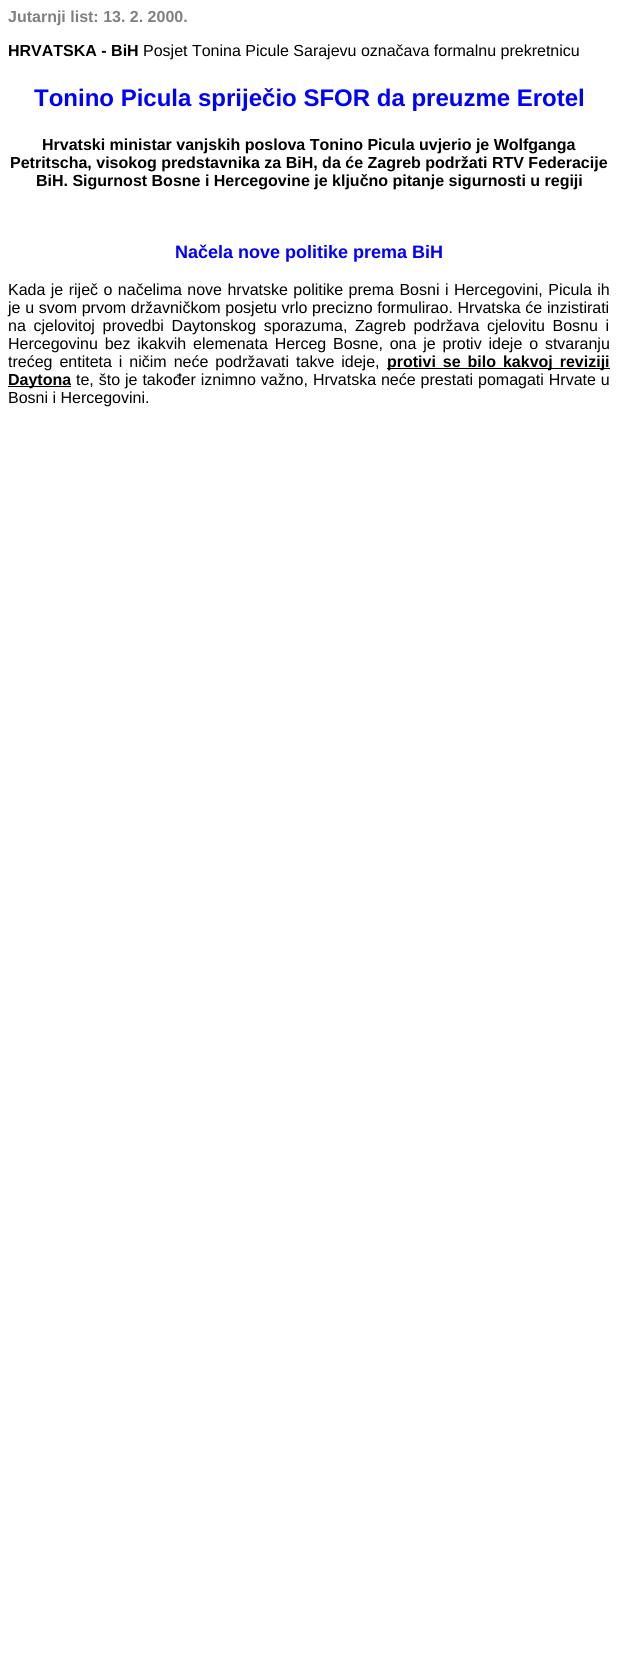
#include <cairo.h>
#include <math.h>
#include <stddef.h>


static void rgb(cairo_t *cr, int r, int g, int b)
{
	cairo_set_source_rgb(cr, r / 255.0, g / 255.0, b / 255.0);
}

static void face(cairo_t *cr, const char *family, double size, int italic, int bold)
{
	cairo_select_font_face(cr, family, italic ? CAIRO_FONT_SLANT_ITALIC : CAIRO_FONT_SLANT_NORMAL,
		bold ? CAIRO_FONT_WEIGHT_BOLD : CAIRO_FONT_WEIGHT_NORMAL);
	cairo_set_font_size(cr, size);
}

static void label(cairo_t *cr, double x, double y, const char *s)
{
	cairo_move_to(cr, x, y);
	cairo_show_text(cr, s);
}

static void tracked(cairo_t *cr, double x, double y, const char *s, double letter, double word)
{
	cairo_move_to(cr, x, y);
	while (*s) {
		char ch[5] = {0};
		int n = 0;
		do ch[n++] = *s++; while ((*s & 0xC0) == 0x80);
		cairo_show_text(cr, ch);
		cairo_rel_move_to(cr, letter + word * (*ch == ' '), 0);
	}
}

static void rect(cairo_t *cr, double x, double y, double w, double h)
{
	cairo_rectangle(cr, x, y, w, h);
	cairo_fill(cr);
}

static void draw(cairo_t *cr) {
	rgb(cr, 255, 255, 255);
	cairo_paint(cr);
	face(cr, "Liberation Sans", 16, 0, 1);
	rgb(cr, 128, 128, 128);
	label(cr, 8, 22, "Jutarnji list: 13. 2. 2000.");
	rgb(cr, 0, 0, 0);
	label(cr, 8, 56, "HRVATSKA - BiH");
	face(cr, "Liberation Sans", 16, 0, 0);
	label(cr, 143, 56, "Posjet Tonina Picule Sarajevu označava formalnu prekretnicu");
	face(cr, "Liberation Sans", 24, 0, 1);
	rgb(cr, 0, 0, 255);
	label(cr, 34, 106, "Tonino Picula spriječio SFOR da preuzme Erotel");
	face(cr, "Liberation Sans", 16, 0, 1);
	rgb(cr, 0, 0, 0);
	label(cr, 42, 150, "Hrvatski ministar vanjskih poslova Tonino Picula uvjerio je Wolfganga");
	label(cr, 10, 168, "Petritscha, visokog predstavnika za BiH, da će Zagreb podržati RTV Federacije");
	label(cr, 36, 186, "BiH. Sigurnost Bosne i Hercegovine je ključno pitanje sigurnosti u regiji");
	face(cr, "Liberation Sans", 18, 0, 1);
	rgb(cr, 0, 0, 255);
	label(cr, 175, 258, "Načela nove politike prema BiH");
	face(cr, "Liberation Sans", 16, 0, 0);
	rgb(cr, 0, 0, 0);
	tracked(cr, 8, 295, "Kada je riječ o načelima nove hrvatske politike prema Bosni i Hercegovini, Picula ih", 0, 1);
	tracked(cr, 8, 313, "je u svom prvom državničkom posjetu vrlo precizno formulirao. Hrvatska će inzistirati", 0, 0.25);
	tracked(cr, 8, 331, "na cjelovitoj provedbi Daytonskog sporazuma, Zagreb podržava cjelovitu Bosnu i", 0, 3.25);
	tracked(cr, 8, 349, "Hercegovinu bez ikakvih elemenata Herceg Bosne, ona je protiv ideje o stvaranju", 0, 2.4);
	tracked(cr, 8, 367, "trećeg entiteta i ničim neće podržavati takve ideje,", 0, 2.5);
	rect(cr, 387, 368, 223, 1);
	face(cr, "Liberation Sans", 16, 0, 1);
	tracked(cr, 387, 367, "protivi se bilo kakvoj reviziji", 0, 2.5);
	rect(cr, 8, 386, 63, 1);
	label(cr, 8, 385, "Daytona");
	face(cr, "Liberation Sans", 16, 0, 0);
	tracked(cr, 76, 385, "te, što je također iznimno važno, Hrvatska neće prestati pomagati Hrvate u", 0, 0.5);
	label(cr, 8, 403, "Bosni i Hercegovini.");
}

int main(void) {
	cairo_surface_t *surface = cairo_image_surface_create(CAIRO_FORMAT_RGB24, 618, 1658);
	cairo_t *cr = cairo_create(surface);
	cairo_font_options_t *options = cairo_font_options_create();
	cairo_font_options_set_hint_metrics(options, CAIRO_HINT_METRICS_OFF);
	cairo_font_options_set_hint_style(options, CAIRO_HINT_STYLE_NONE);
	cairo_set_font_options(cr, options);
	cairo_set_miter_limit(cr, 4);
	draw(cr);
	cairo_surface_write_to_png(surface, "render.png");
	cairo_font_options_destroy(options);
	cairo_destroy(cr);
	cairo_surface_destroy(surface);
	return 0;
}
